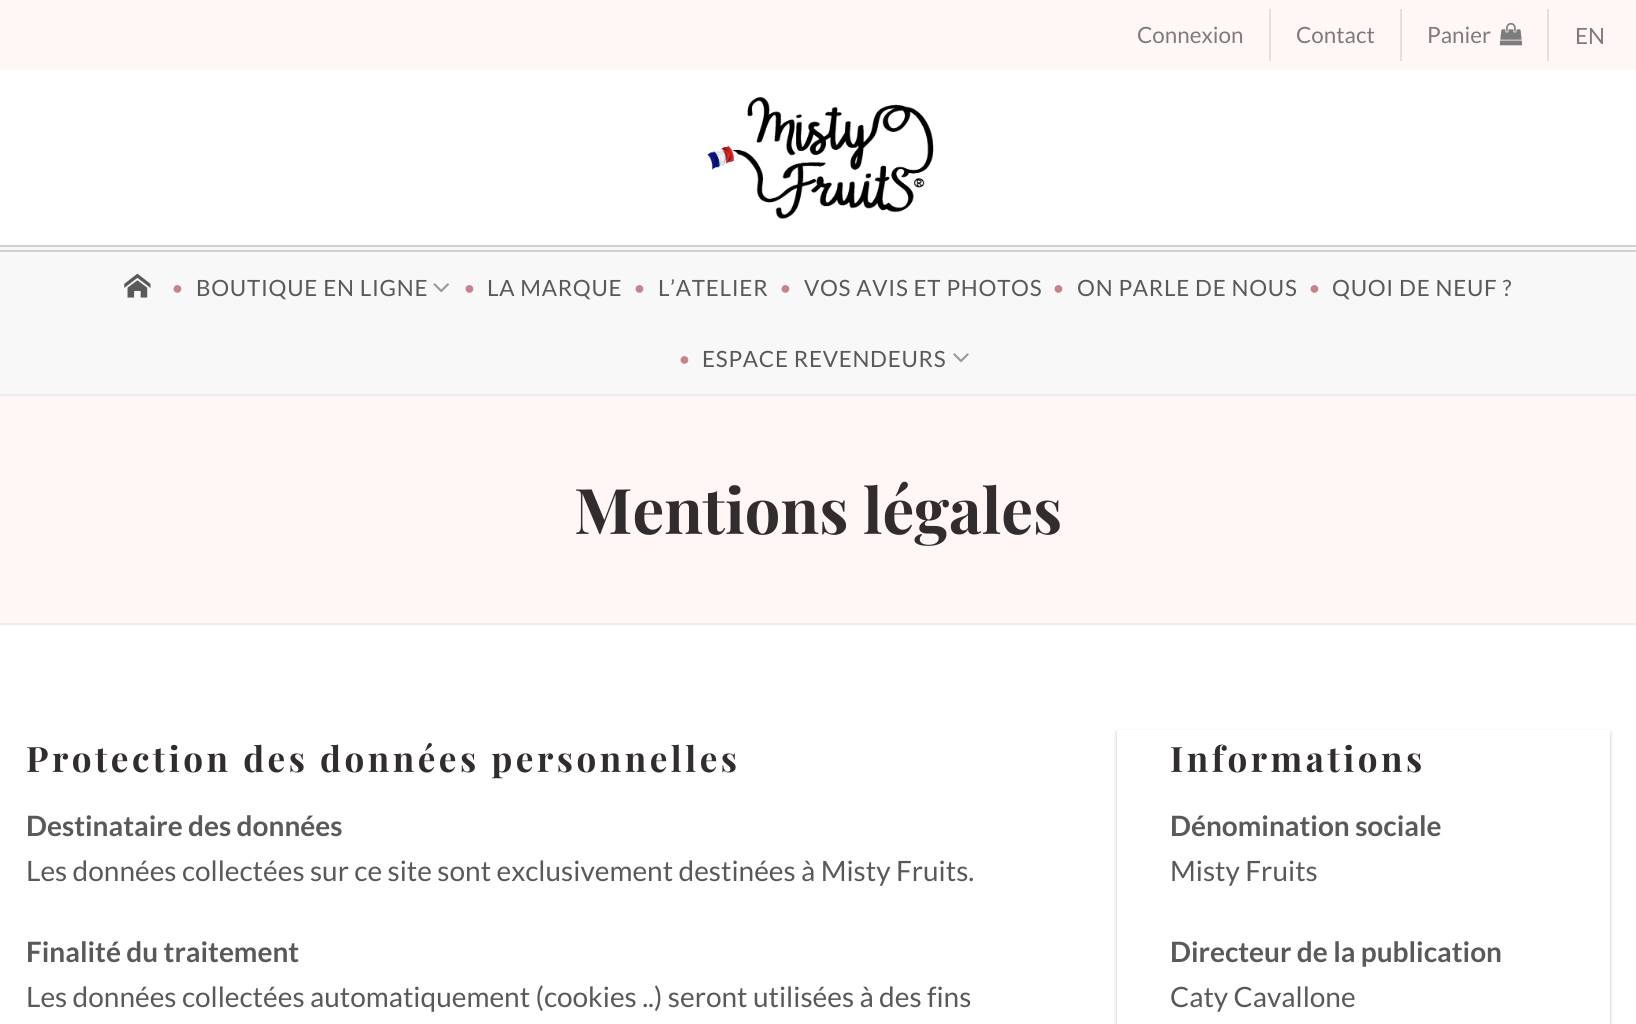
#include <cairo.h>
#include <math.h>
#include <stddef.h>


static void rgb(cairo_t *cr, int r, int g, int b)
{
	cairo_set_source_rgb(cr, r / 255.0, g / 255.0, b / 255.0);
}

static void face(cairo_t *cr, const char *family, double size, int italic, int bold)
{
	cairo_select_font_face(cr, family, italic ? CAIRO_FONT_SLANT_ITALIC : CAIRO_FONT_SLANT_NORMAL,
		bold ? CAIRO_FONT_WEIGHT_BOLD : CAIRO_FONT_WEIGHT_NORMAL);
	cairo_set_font_size(cr, size);
}

static void label(cairo_t *cr, double x, double y, const char *s)
{
	cairo_move_to(cr, x, y);
	cairo_show_text(cr, s);
}

static void tracked(cairo_t *cr, double x, double y, const char *s, double letter, double word)
{
	cairo_move_to(cr, x, y);
	while (*s) {
		char ch[5] = {0};
		int n = 0;
		do ch[n++] = *s++; while ((*s & 0xC0) == 0x80);
		cairo_show_text(cr, ch);
		cairo_rel_move_to(cr, letter + word * (*ch == ' '), 0);
	}
}

static void rect(cairo_t *cr, double x, double y, double w, double h)
{
	cairo_rectangle(cr, x, y, w, h);
	cairo_fill(cr);
}

static void rrect(cairo_t *cr, double x, double y, double w, double h, double r)
{
	cairo_new_sub_path(cr);
	cairo_arc(cr, x + w - r, y + h - r, r, 0, M_PI / 2);
	cairo_arc(cr, x + r, y + h - r, r, M_PI / 2, M_PI);
	cairo_arc(cr, x + r, y + r, r, M_PI, 1.5 * M_PI);
	cairo_arc(cr, x + w - r, y + r, r, 1.5 * M_PI, 2 * M_PI);
	cairo_close_path(cr);
}

static void soft_shadow(cairo_t *cr, double x, double y, double w, double h, double r, double blur, double alpha)
{
	cairo_push_group_with_content(cr, CAIRO_CONTENT_ALPHA);
	cairo_set_operator(cr, CAIRO_OPERATOR_SOURCE);
	for (int i = 15; i >= -15 && fmin(w, h) + blur * i / 3 > 0; i -= 2) {
		double e = blur * i / 6;
		cairo_set_source_rgba(cr, 0, 0, 0, alpha * erfc((i - 1) / 8.5) / 2);
		rrect(cr, x - e, y - e, w + 2 * e, h + 2 * e, fmax(0, fmin(r + e + blur * .6, fmin(w, h) / 2 + e)));
		cairo_fill(cr);
	}
	cairo_pattern_t *soft = cairo_pop_group(cr);
	cairo_mask(cr, soft);
	cairo_pattern_destroy(soft);
}

static void image(cairo_t *cr, const char *path, double x, double y, double w, double h)
{
	cairo_surface_t *image = cairo_image_surface_create_from_png(path);
	cairo_save(cr);
	cairo_set_source_surface(cr, image, x, y);
	cairo_rectangle(cr, x, y, w, h);
	cairo_fill(cr);
	cairo_restore(cr);
	cairo_surface_destroy(image);
}

static void draw(cairo_t *cr) {
	rgb(cr, 255, 255, 255);
	cairo_paint(cr);
	rgb(cr, 255, 246, 246);
	rect(cr, 0, 0, 1636, 70);
	face(cr, "Lato", 22.4, 0, 0);
	rgb(cr, 125, 124, 124);
	label(cr, 1137, 43, "Connexion");
	rgb(cr, 230, 221, 221);
	rect(cr, 1269, 9, 2, 52);
	rgb(cr, 125, 124, 124);
	label(cr, 1296, 43, "Contact");
	rgb(cr, 230, 221, 221);
	rect(cr, 1400, 9, 2, 52);
	rgb(cr, 125, 124, 124);
	label(cr, 1427, 43, "Panier");
	image(cr, "image0.png", 1499, 23, 24, 23);
	rgb(cr, 230, 221, 221);
	rect(cr, 1547, 9, 2, 52);
	rgb(cr, 125, 124, 124);
	label(cr, 1575, 44, "EN");
	image(cr, "image1.png", 707, 96, 227, 123);
	rgb(cr, 248, 248, 248);
	rect(cr, 0, 247, 1636, 147);
	rgb(cr, 208, 208, 208);
	rect(cr, 0, 245, 1636, 2);
	rect(cr, 0, 250, 1636, 2);
	image(cr, "image2.png", 124, 273, 27, 25);
	face(cr, "Liberation Sans", 18, 0, 0);
	rgb(cr, 199, 131, 140);
	tracked(cr, 172, 294, "●", 0.75, 0);
	face(cr, "Lato", 22.4, 0, 0);
	rgb(cr, 89, 89, 89);
	tracked(cr, 196, 296, "BOUTIQUE EN LIGNE", 0.75, 0);
	image(cr, "image3.png", 433, 283, 16, 10);
	face(cr, "Liberation Sans", 18, 0, 0);
	rgb(cr, 199, 131, 140);
	tracked(cr, 464, 294, "●", 0.75, 0);
	face(cr, "Lato", 22.4, 0, 0);
	rgb(cr, 89, 89, 89);
	tracked(cr, 487, 296, "LA MARQUE", 0.75, 0);
	face(cr, "Liberation Sans", 18, 0, 0);
	rgb(cr, 199, 131, 140);
	tracked(cr, 634, 294, "●", 0.75, 0);
	face(cr, "Lato", 22.4, 0, 0);
	rgb(cr, 89, 89, 89);
	tracked(cr, 658, 296, "L’ATELIER", 0.75, 0);
	face(cr, "Liberation Sans", 18, 0, 0);
	rgb(cr, 199, 131, 140);
	tracked(cr, 780, 294, "●", 0.75, 0);
	face(cr, "Lato", 22.4, 0, 0);
	rgb(cr, 89, 89, 89);
	tracked(cr, 804, 296, "VOS AVIS ET PHOTOS", 0.75, 0);
	face(cr, "Liberation Sans", 18, 0, 0);
	rgb(cr, 199, 131, 140);
	tracked(cr, 1053, 294, "●", 0.75, 0);
	face(cr, "Lato", 22.4, 0, 0);
	rgb(cr, 89, 89, 89);
	tracked(cr, 1077, 296, "ON PARLE DE NOUS", 0.75, 0);
	face(cr, "Liberation Sans", 18, 0, 0);
	rgb(cr, 199, 131, 140);
	tracked(cr, 1309, 294, "●", 0.75, 0);
	face(cr, "Lato", 22.4, 0, 0);
	rgb(cr, 89, 89, 89);
	tracked(cr, 1332, 296, "QUOI DE NEUF ?", 0.75, 0);
	face(cr, "Liberation Sans", 18, 0, 0);
	rgb(cr, 199, 131, 140);
	tracked(cr, 679, 365, "●", 0.75, 0);
	face(cr, "Lato", 22.4, 0, 0);
	rgb(cr, 89, 89, 89);
	tracked(cr, 702, 367, "ESPACE REVENDEURS", 0.75, 0);
	image(cr, "image4.png", 953, 353, 16, 10);
	rgb(cr, 236, 236, 236);
	rect(cr, 0, 394, 1636, 2);
	rect(cr, 0, 623, 1636, 2);
	rgb(cr, 255, 246, 246);
	rect(cr, 0, 396, 1636, 227);
	face(cr, "Playfair Display", 63, 0, 1);
	rgb(cr, 49, 45, 46);
	label(cr, 574, 534, "Mentions légales");
	face(cr, "Playfair Display", 35, 0, 1);
	tracked(cr, 26, 772, "Protection des données personnelles", 3.5, 0);
	face(cr, "Lato", 28, 0, 1);
	rgb(cr, 89, 89, 89);
	label(cr, 26, 836, "Destinataire des données");
	face(cr, "Lato", 28, 0, 0);
	label(cr, 26, 881, "Les données collectées sur ce site sont exclusivement destinées à Misty Fruits.");
	face(cr, "Lato", 28, 0, 1);
	label(cr, 26, 962, "Finalité du traitement");
	face(cr, "Lato", 28, 0, 0);
	label(cr, 26, 1007, "Les données collectées automatiquement (cookies ..) seront utilisées à des fins");
	cairo_save(cr);
	cairo_set_fill_rule(cr, CAIRO_FILL_RULE_EVEN_ODD);
	cairo_new_path(cr);
	cairo_move_to(cr, 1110, 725);
	cairo_line_to(cr, 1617, 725);
	cairo_line_to(cr, 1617, 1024);
	cairo_line_to(cr, 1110, 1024);
	cairo_close_path(cr);
	cairo_move_to(cr, 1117, 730);
	cairo_line_to(cr, 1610, 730);
	cairo_line_to(cr, 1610, 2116);
	cairo_line_to(cr, 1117, 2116);
	cairo_close_path(cr);
	cairo_clip(cr);
	rgb(cr, 0, 0, 0);
	soft_shadow(cr, 1117, 732, 493, 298, 0, 2, 0.24);
	cairo_restore(cr);
	face(cr, "Playfair Display", 35, 0, 1);
	rgb(cr, 49, 45, 46);
	tracked(cr, 1170, 772, "Informations", 3.5, 0);
	face(cr, "Lato", 28, 0, 1);
	rgb(cr, 89, 89, 89);
	label(cr, 1170, 836, "Dénomination sociale");
	face(cr, "Lato", 28, 0, 0);
	label(cr, 1170, 881, "Misty Fruits");
	face(cr, "Lato", 28, 0, 1);
	label(cr, 1170, 962, "Directeur de la publication");
	face(cr, "Lato", 28, 0, 0);
	label(cr, 1170, 1007, "Caty Cavallone");
}

int main(void) {
	cairo_surface_t *surface = cairo_image_surface_create(CAIRO_FORMAT_RGB24, 1636, 1024);
	cairo_t *cr = cairo_create(surface);
	cairo_font_options_t *options = cairo_font_options_create();
	cairo_font_options_set_hint_metrics(options, CAIRO_HINT_METRICS_OFF);
	cairo_font_options_set_hint_style(options, CAIRO_HINT_STYLE_NONE);
	cairo_set_font_options(cr, options);
	cairo_set_miter_limit(cr, 4);
	draw(cr);
	cairo_surface_write_to_png(surface, "render.png");
	cairo_font_options_destroy(options);
	cairo_destroy(cr);
	cairo_surface_destroy(surface);
	return 0;
}
